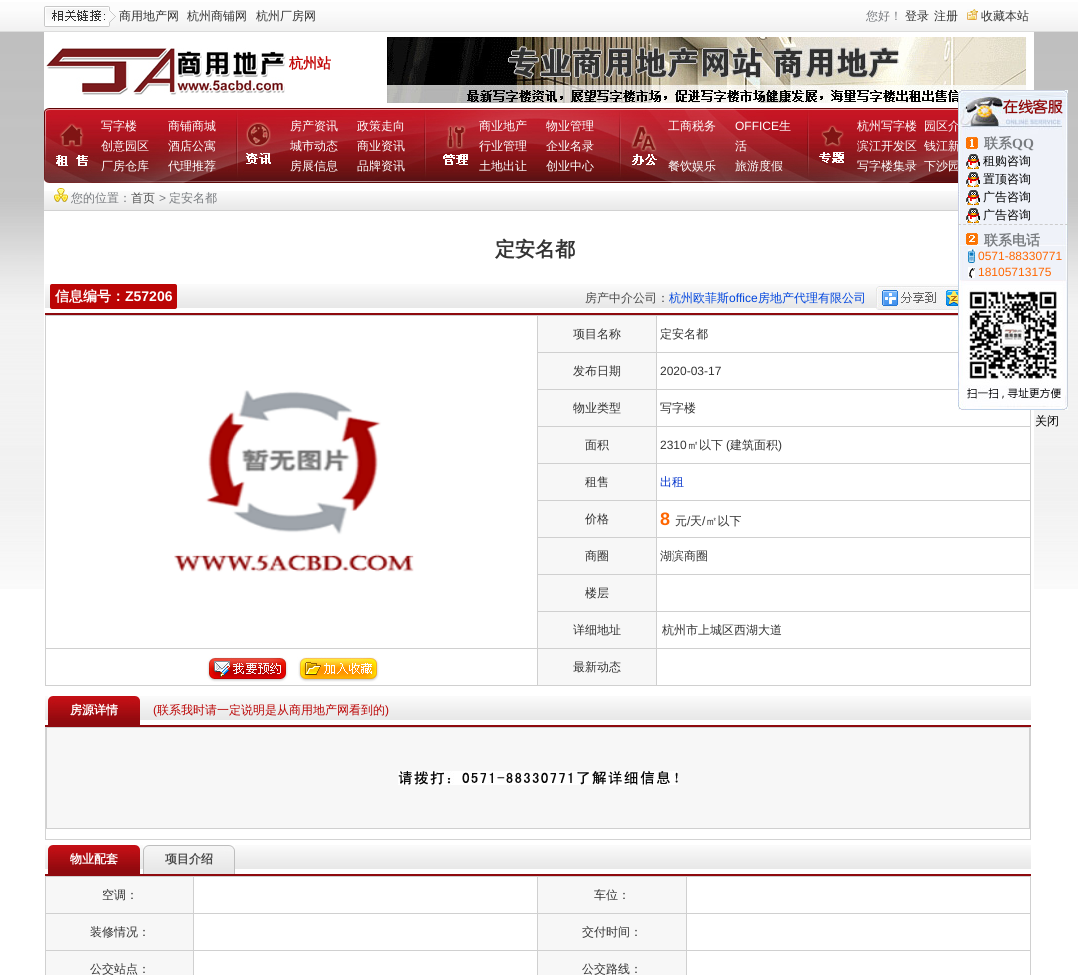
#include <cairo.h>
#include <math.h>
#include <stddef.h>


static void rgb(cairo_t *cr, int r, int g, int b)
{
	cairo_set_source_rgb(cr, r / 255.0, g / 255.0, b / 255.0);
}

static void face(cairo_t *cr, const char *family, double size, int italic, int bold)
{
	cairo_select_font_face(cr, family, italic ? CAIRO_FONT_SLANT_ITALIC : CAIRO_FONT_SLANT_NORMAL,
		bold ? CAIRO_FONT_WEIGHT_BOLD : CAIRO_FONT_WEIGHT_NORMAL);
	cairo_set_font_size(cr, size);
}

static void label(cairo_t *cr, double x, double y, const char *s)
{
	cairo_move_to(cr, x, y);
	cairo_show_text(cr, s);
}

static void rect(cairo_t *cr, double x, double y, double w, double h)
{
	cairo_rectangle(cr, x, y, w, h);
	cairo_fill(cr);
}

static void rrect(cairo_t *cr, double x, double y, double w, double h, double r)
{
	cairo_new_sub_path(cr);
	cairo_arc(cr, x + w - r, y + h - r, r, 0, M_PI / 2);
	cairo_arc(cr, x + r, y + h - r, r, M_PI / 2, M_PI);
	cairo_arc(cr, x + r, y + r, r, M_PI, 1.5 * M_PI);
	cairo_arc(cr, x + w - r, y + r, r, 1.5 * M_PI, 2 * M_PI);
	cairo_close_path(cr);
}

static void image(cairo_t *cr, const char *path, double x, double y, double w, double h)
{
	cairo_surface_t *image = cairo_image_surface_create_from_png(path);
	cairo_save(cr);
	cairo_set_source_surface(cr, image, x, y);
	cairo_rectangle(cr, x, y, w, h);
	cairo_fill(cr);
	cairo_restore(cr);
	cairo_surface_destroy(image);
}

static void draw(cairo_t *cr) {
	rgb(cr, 255, 255, 255);
	cairo_paint(cr);
	image(cr, "image0.png", 0, 32, 1078, 557);
	image(cr, "image1.png", 0, 0, 1078, 32);
	image(cr, "image2.png", 44, 6, 72, 21);
	face(cr, "WenQuanYi Zen Hei Medium", 12, 0, 0);
	rgb(cr, 51, 51, 51);
	label(cr, 119, 20, "商用地产网");
	label(cr, 187, 20, "杭州商铺网");
	label(cr, 256, 20, "杭州厂房网");
	rgb(cr, 121, 124, 128);
	label(cr, 866, 20, "您好！");
	rgb(cr, 51, 51, 51);
	label(cr, 905, 20, "登录");
	label(cr, 934, 20, "注册");
	image(cr, "image3.png", 967, 9, 11, 11);
	label(cr, 981, 20, "收藏本站");
	rgb(cr, 255, 255, 255);
	rect(cr, 44, 32, 990, 557);
	image(cr, "image4.png", 45, 48, 241, 47);
	face(cr, "WenQuanYi Zen Hei", 14, 0, 1);
	rgb(cr, 195, 9, 9);
	label(cr, 289, 68, "杭州站");
	image(cr, "image5.png", 387, 37, 640, 66);
	image(cr, "image6.png", 44, 108, 914, 75);
	face(cr, "WenQuanYi Zen Hei Medium", 12, 0, 0);
	rgb(cr, 255, 255, 255);
	label(cr, 101, 130, "写字楼");
	label(cr, 168, 130, "商铺商城");
	label(cr, 101, 150, "创意园区");
	label(cr, 168, 150, "酒店公寓");
	label(cr, 101, 170, "厂房仓库");
	label(cr, 168, 170, "代理推荐");
	label(cr, 290, 130, "房产资讯");
	label(cr, 357, 130, "政策走向");
	label(cr, 290, 150, "城市动态");
	label(cr, 357, 150, "商业资讯");
	label(cr, 290, 170, "房展信息");
	label(cr, 357, 170, "品牌资讯");
	label(cr, 479, 130, "商业地产");
	label(cr, 546, 130, "物业管理");
	label(cr, 479, 150, "行业管理");
	label(cr, 546, 150, "企业名录");
	label(cr, 479, 170, "土地出让");
	label(cr, 546, 170, "创业中心");
	label(cr, 668, 130, "工商税务");
	face(cr, "Liberation Sans", 12, 0, 0);
	label(cr, 735, 130, "OFFICE");
	face(cr, "WenQuanYi Zen Hei Medium", 12, 0, 0);
	label(cr, 779, 130, "生");
	label(cr, 735, 150, "活");
	label(cr, 668, 170, "餐饮娱乐");
	label(cr, 735, 170, "旅游度假");
	label(cr, 857, 130, "杭州写字楼");
	label(cr, 924, 130, "园区介");
	label(cr, 857, 150, "滨江开发区");
	label(cr, 924, 150, "钱江新");
	label(cr, 857, 170, "写字楼集录");
	label(cr, 924, 170, "下沙园");
	image(cr, "image7.png", 44, 191, 914, 20);
	image(cr, "image8.png", 54, 188, 14, 14);
	rgb(cr, 121, 124, 128);
	label(cr, 71, 202, "您的位置：");
	rgb(cr, 80, 80, 80);
	label(cr, 131, 202, "首页");
	face(cr, "Liberation Sans", 12, 0, 0);
	rgb(cr, 121, 124, 128);
	label(cr, 159, 202, ">");
	face(cr, "WenQuanYi Zen Hei Medium", 12, 0, 0);
	label(cr, 169, 202, "定安名都");
	face(cr, "WenQuanYi Zen Hei", 20, 0, 1);
	rgb(cr, 51, 51, 51);
	label(cr, 495, 256, "定安名都");
	image(cr, "image9.png", 45, 284, 913, 24);
	rgb(cr, 142, 10, 14);
	rect(cr, 45, 313, 913, 2);
	rgb(cr, 187, 5, 5);
	rrect(cr, 50, 284, 127, 25, 2);
	cairo_fill(cr);
	face(cr, "WenQuanYi Zen Hei", 14, 0, 1);
	rgb(cr, 255, 255, 255);
	label(cr, 55, 301, "信息编号：");
	face(cr, "Liberation Sans", 14, 0, 1);
	label(cr, 125, 301, "Z57206");
	face(cr, "WenQuanYi Zen Hei Medium", 12, 0, 0);
	rgb(cr, 73, 73, 73);
	label(cr, 585, 302, "房产中介公司：");
	rgb(cr, 0, 69, 222);
	label(cr, 669, 302, "杭州欧菲斯");
	face(cr, "Liberation Sans", 12, 0, 0);
	label(cr, 729, 302, "office");
	face(cr, "WenQuanYi Zen Hei Medium", 12, 0, 0);
	label(cr, 758, 302, "房地产代理有限公司");
	image(cr, "image10.png", 876, 286, 82, 24);
	rgb(cr, 208, 208, 208);
	rect(cr, 45, 315, 986, 371);
	rgb(cr, 255, 255, 255);
	rect(cr, 46, 316, 491, 332);
	image(cr, "image11.png", 174, 390, 240, 182);
	rgb(cr, 247, 247, 247);
	rect(cr, 538, 316, 118, 36);
	rgb(cr, 51, 51, 51);
	label(cr, 573, 338, "项目名称");
	rgb(cr, 255, 255, 255);
	rect(cr, 657, 316, 301, 36);
	rgb(cr, 51, 51, 51);
	label(cr, 660, 338, "定安名都");
	rgb(cr, 247, 247, 247);
	rect(cr, 538, 353, 118, 36);
	rgb(cr, 51, 51, 51);
	label(cr, 573, 375, "发布日期");
	rgb(cr, 255, 255, 255);
	rect(cr, 657, 353, 301, 36);
	face(cr, "Liberation Sans", 12, 0, 0);
	rgb(cr, 51, 51, 51);
	label(cr, 660, 375, "2020-03-17");
	rgb(cr, 247, 247, 247);
	rect(cr, 538, 390, 118, 36);
	face(cr, "WenQuanYi Zen Hei Medium", 12, 0, 0);
	rgb(cr, 51, 51, 51);
	label(cr, 573, 412, "物业类型");
	rgb(cr, 255, 255, 255);
	rect(cr, 657, 390, 373, 36);
	rgb(cr, 51, 51, 51);
	label(cr, 660, 412, "写字楼");
	rgb(cr, 247, 247, 247);
	rect(cr, 538, 427, 118, 36);
	rgb(cr, 51, 51, 51);
	label(cr, 585, 449, "面积");
	rgb(cr, 255, 255, 255);
	rect(cr, 657, 427, 373, 36);
	face(cr, "Liberation Sans", 12, 0, 0);
	rgb(cr, 51, 51, 51);
	label(cr, 660, 449, "2310");
	face(cr, "WenQuanYi Zen Hei Medium", 12, 0, 0);
	label(cr, 687, 449, "㎡以下");
	face(cr, "Liberation Sans", 12, 0, 0);
	label(cr, 726, 449, "(");
	face(cr, "WenQuanYi Zen Hei Medium", 12, 0, 0);
	label(cr, 730, 449, "建筑面积");
	face(cr, "Liberation Sans", 12, 0, 0);
	label(cr, 778, 449, ")");
	rgb(cr, 247, 247, 247);
	rect(cr, 538, 464, 118, 36);
	face(cr, "WenQuanYi Zen Hei Medium", 12, 0, 0);
	rgb(cr, 51, 51, 51);
	label(cr, 585, 486, "租售");
	rgb(cr, 255, 255, 255);
	rect(cr, 657, 464, 373, 36);
	rgb(cr, 2, 51, 204);
	label(cr, 660, 486, "出租");
	rgb(cr, 247, 247, 247);
	rect(cr, 538, 501, 118, 36);
	rgb(cr, 51, 51, 51);
	label(cr, 585, 523, "价格");
	rgb(cr, 255, 255, 255);
	rect(cr, 657, 501, 373, 36);
	face(cr, "Liberation Sans", 18, 0, 1);
	rgb(cr, 255, 102, 0);
	label(cr, 660, 525, "8");
	face(cr, "WenQuanYi Zen Hei Medium", 12, 0, 0);
	rgb(cr, 51, 51, 51);
	label(cr, 675, 525, "元");
	face(cr, "Liberation Sans", 12, 0, 0);
	label(cr, 687, 525, "/");
	face(cr, "WenQuanYi Zen Hei Medium", 12, 0, 0);
	label(cr, 690, 525, "天 ㎡以下");
	face(cr, "Liberation Sans", 12, 0, 0);
	label(cr, 702, 525, "/");
	rgb(cr, 247, 247, 247);
	rect(cr, 538, 538, 118, 36);
	face(cr, "WenQuanYi Zen Hei Medium", 12, 0, 0);
	rgb(cr, 51, 51, 51);
	label(cr, 585, 560, "商圈");
	rgb(cr, 255, 255, 255);
	rect(cr, 657, 538, 373, 36);
	rgb(cr, 51, 51, 51);
	label(cr, 660, 560, "湖滨商圈");
	rgb(cr, 247, 247, 247);
	rect(cr, 538, 575, 118, 36);
	rgb(cr, 51, 51, 51);
	label(cr, 585, 597, "楼层");
	rgb(cr, 255, 255, 255);
	rect(cr, 657, 575, 373, 36);
	rgb(cr, 247, 247, 247);
	rect(cr, 538, 612, 118, 36);
	rgb(cr, 51, 51, 51);
	label(cr, 573, 634, "详细地址");
	rgb(cr, 255, 255, 255);
	rect(cr, 657, 612, 373, 36);
	rgb(cr, 51, 51, 51);
	label(cr, 662, 634, "杭州市上城区西湖大道");
	rgb(cr, 255, 255, 255);
	rect(cr, 46, 649, 491, 36);
	image(cr, "image12.png", 207, 657, 81, 25);
	image(cr, "image13.png", 297, 657, 82, 25);
	rgb(cr, 247, 247, 247);
	rect(cr, 538, 649, 118, 36);
	rgb(cr, 51, 51, 51);
	label(cr, 573, 671, "最新动态");
	rgb(cr, 255, 255, 255);
	rect(cr, 657, 649, 373, 36);
	image(cr, "image14.png", 45, 696, 986, 24);
	rgb(cr, 142, 10, 14);
	rect(cr, 45, 725, 986, 2);
	image(cr, "image15.png", 48, 696, 92, 29);
	face(cr, "WenQuanYi Zen Hei", 12, 0, 1);
	rgb(cr, 255, 255, 255);
	label(cr, 70, 714, "房源详情");
	face(cr, "Liberation Sans", 12, 0, 0);
	rgb(cr, 187, 5, 5);
	label(cr, 153, 714, "(");
	face(cr, "WenQuanYi Zen Hei Medium", 12, 0, 0);
	label(cr, 157, 714, "联系我时请一定说明是从商用地产网看到的");
	face(cr, "Liberation Sans", 12, 0, 0);
	label(cr, 385, 714, ")");
	rgb(cr, 211, 211, 211);
	rect(cr, 1030, 727, 1, 113);
	rect(cr, 45, 839, 986, 1);
	rect(cr, 45, 727, 1, 113);
	rgb(cr, 208, 208, 208);
	rect(cr, 46, 727, 984, 102);
	rgb(cr, 247, 247, 247);
	rect(cr, 47, 728, 982, 100);
	image(cr, "image16.png", 398, 771, 280, 14);
	image(cr, "image14.png", 45, 845, 986, 24);
	rgb(cr, 142, 10, 14);
	rect(cr, 45, 874, 986, 2);
	image(cr, "image15.png", 48, 845, 92, 29);
	face(cr, "WenQuanYi Zen Hei", 12, 0, 1);
	rgb(cr, 255, 255, 255);
	label(cr, 70, 863, "物业配套");
	image(cr, "image17.png", 143, 845, 92, 29);
	rgb(cr, 73, 73, 73);
	label(cr, 165, 863, "项目介绍");
	rgb(cr, 208, 208, 208);
	rect(cr, 45, 876, 986, 99);
	rgb(cr, 247, 247, 247);
	rect(cr, 46, 877, 147, 36);
	face(cr, "WenQuanYi Zen Hei Medium", 12, 0, 0);
	rgb(cr, 51, 51, 51);
	label(cr, 102, 899, "空调：");
	rgb(cr, 255, 255, 255);
	rect(cr, 194, 877, 343, 36);
	rgb(cr, 247, 247, 247);
	rect(cr, 538, 877, 148, 36);
	rgb(cr, 51, 51, 51);
	label(cr, 594, 899, "车位：");
	rgb(cr, 255, 255, 255);
	rect(cr, 687, 877, 343, 36);
	rgb(cr, 247, 247, 247);
	rect(cr, 46, 914, 147, 36);
	rgb(cr, 51, 51, 51);
	label(cr, 90, 936, "装修情况：");
	rgb(cr, 255, 255, 255);
	rect(cr, 194, 914, 343, 36);
	rgb(cr, 247, 247, 247);
	rect(cr, 538, 914, 148, 36);
	rgb(cr, 51, 51, 51);
	label(cr, 582, 936, "交付时间：");
	rgb(cr, 255, 255, 255);
	rect(cr, 687, 914, 343, 36);
	rgb(cr, 247, 247, 247);
	rect(cr, 46, 951, 147, 24);
	rgb(cr, 51, 51, 51);
	label(cr, 90, 973, "公交站点：");
	rgb(cr, 255, 255, 255);
	rect(cr, 194, 951, 343, 24);
	rgb(cr, 247, 247, 247);
	rect(cr, 538, 951, 148, 24);
	rgb(cr, 51, 51, 51);
	label(cr, 582, 973, "公交路线：");
	rgb(cr, 255, 255, 255);
	rect(cr, 687, 951, 343, 24);
	image(cr, "image18.png", 958, 90, 110, 44);
	image(cr, "image19.png", 958, 134, 110, 146);
	image(cr, "image20.png", 966, 137, 12, 12);
	face(cr, "WenQuanYi Zen Hei", 14, 0, 1);
	rgb(cr, 121, 124, 128);
	label(cr, 984, 148, "联系");
	face(cr, "Liberation Serif", 14, 0, 1);
	label(cr, 1012, 148, "QQ");
	cairo_new_path(cr);
	cairo_move_to(cr, 958, 224.5);
	cairo_line_to(cr, 1068, 224.5);
	rgb(cr, 204, 204, 204);
	cairo_set_line_width(cr, 1);
	cairo_set_dash(cr, (double[]){3, 2.1}, 2, 0);
	cairo_stroke(cr);
	image(cr, "image21.png", 966, 154, 14, 15);
	face(cr, "WenQuanYi Zen Hei Medium", 12, 0, 0);
	rgb(cr, 0, 0, 0);
	label(cr, 983, 165, "租购咨询");
	image(cr, "image21.png", 966, 172, 14, 15);
	label(cr, 983, 183, "置顶咨询");
	image(cr, "image21.png", 966, 190, 14, 15);
	label(cr, 983, 201, "广告咨询");
	image(cr, "image21.png", 966, 208, 14, 15);
	label(cr, 983, 219, "广告咨询");
	image(cr, "image22.png", 966, 233, 12, 12);
	face(cr, "WenQuanYi Zen Hei", 14, 0, 1);
	rgb(cr, 121, 124, 128);
	label(cr, 984, 245, "联系电话");
	image(cr, "image23.png", 968, 249, 7, 14);
	face(cr, "Liberation Sans", 12, 0, 0);
	rgb(cr, 255, 102, 0);
	label(cr, 978, 260, "0571-88330771");
	image(cr, "image24.png", 968, 267, 7, 11);
	label(cr, 978, 276, "18105713175");
	image(cr, "image25.png", 958, 280, 110, 130);
	face(cr, "WenQuanYi Zen Hei Medium", 12, 0, 0);
	rgb(cr, 0, 0, 0);
	label(cr, 1035, 425, "关闭");
}

int main(void) {
	cairo_surface_t *surface = cairo_image_surface_create(CAIRO_FORMAT_RGB24, 1078, 975);
	cairo_t *cr = cairo_create(surface);
	cairo_font_options_t *options = cairo_font_options_create();
	cairo_font_options_set_hint_metrics(options, CAIRO_HINT_METRICS_OFF);
	cairo_font_options_set_hint_style(options, CAIRO_HINT_STYLE_NONE);
	cairo_set_font_options(cr, options);
	cairo_set_miter_limit(cr, 4);
	draw(cr);
	cairo_surface_write_to_png(surface, "render.png");
	cairo_font_options_destroy(options);
	cairo_destroy(cr);
	cairo_surface_destroy(surface);
	return 0;
}
